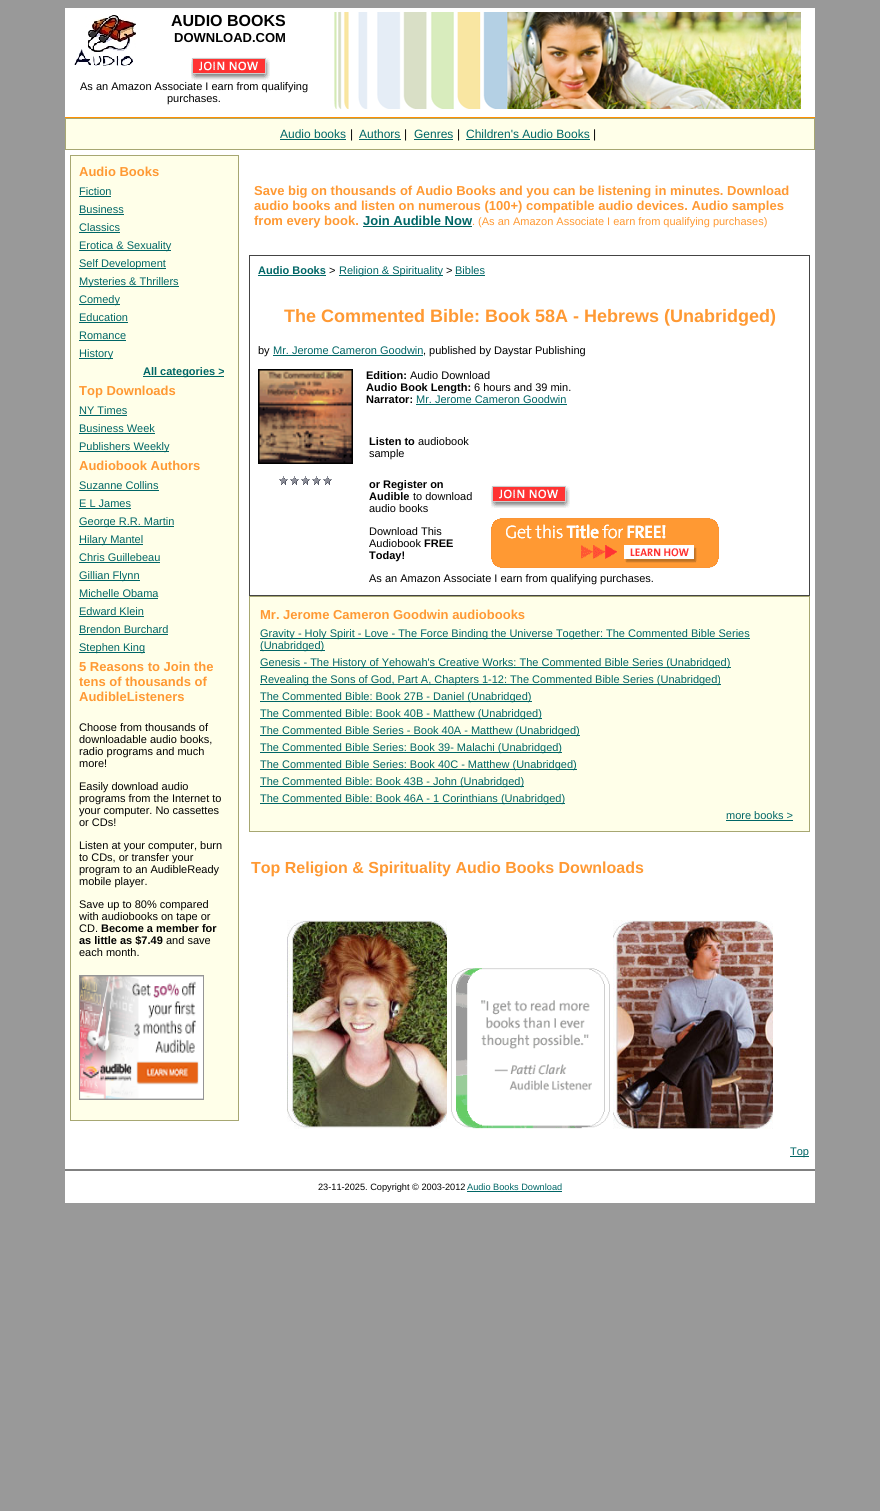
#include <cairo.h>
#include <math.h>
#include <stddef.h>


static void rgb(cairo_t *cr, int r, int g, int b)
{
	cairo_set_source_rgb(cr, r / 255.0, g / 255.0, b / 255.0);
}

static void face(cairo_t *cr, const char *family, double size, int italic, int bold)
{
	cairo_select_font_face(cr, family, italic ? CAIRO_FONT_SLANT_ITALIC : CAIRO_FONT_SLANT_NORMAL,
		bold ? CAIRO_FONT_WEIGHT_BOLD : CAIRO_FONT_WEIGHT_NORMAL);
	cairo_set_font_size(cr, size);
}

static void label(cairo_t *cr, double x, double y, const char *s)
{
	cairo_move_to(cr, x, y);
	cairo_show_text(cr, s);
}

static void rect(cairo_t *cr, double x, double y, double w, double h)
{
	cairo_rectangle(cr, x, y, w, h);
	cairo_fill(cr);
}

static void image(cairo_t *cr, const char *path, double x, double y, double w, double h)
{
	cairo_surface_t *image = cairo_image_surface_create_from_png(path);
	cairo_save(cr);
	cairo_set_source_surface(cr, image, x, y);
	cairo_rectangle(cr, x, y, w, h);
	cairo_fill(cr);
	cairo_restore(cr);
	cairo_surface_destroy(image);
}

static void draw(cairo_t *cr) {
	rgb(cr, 153, 153, 153);
	cairo_paint(cr);
	rgb(cr, 255, 255, 255);
	rect(cr, 65, 8, 750, 109);
	image(cr, "image0.png", 74, 15, 62, 51);
	face(cr, "Liberation Sans", 16, 0, 1);
	rgb(cr, 0, 0, 0);
	label(cr, 171, 26, "AUDIO BOOKS");
	face(cr, "Liberation Sans", 13, 0, 1);
	label(cr, 174, 42, "DOWNLOAD.COM");
	image(cr, "image1.png", 191, 57, 79, 23);
	face(cr, "Liberation Sans", 11, 0, 0);
	label(cr, 80, 90, "As an Amazon Associate I earn from qualifying");
	label(cr, 167, 102, "purchases.");
	image(cr, "image2.png", 334, 12, 467, 97);
	rgb(cr, 255, 144, 0);
	rect(cr, 65, 117, 750, 1);
	rgb(cr, 255, 255, 233);
	cairo_rectangle(cr, 65.5, 118.5, 749, 31);
	cairo_fill_preserve(cr);
	rgb(cr, 167, 167, 114);
	cairo_set_line_width(cr, 1);
	cairo_stroke(cr);
	face(cr, "Liberation Sans", 12, 0, 0);
	rgb(cr, 0, 102, 102);
	label(cr, 280, 138, "Audio books");
	rect(cr, 280, 139, 66, 1);
	rgb(cr, 0, 0, 0);
	label(cr, 350, 138, "|");
	rgb(cr, 0, 102, 102);
	label(cr, 359, 138, "Authors");
	rect(cr, 359, 139, 42, 1);
	rgb(cr, 0, 0, 0);
	label(cr, 404, 138, "|");
	rgb(cr, 0, 102, 102);
	label(cr, 414, 138, "Genres");
	rect(cr, 414, 139, 39, 1);
	rgb(cr, 0, 0, 0);
	label(cr, 457, 138, "|");
	rgb(cr, 0, 102, 102);
	label(cr, 466, 138, "Children's Audio Books");
	rect(cr, 466, 139, 124, 1);
	rgb(cr, 0, 0, 0);
	label(cr, 593, 138, "|");
	rgb(cr, 255, 255, 255);
	rect(cr, 65, 150, 750, 1053);
	rgb(cr, 255, 255, 233);
	cairo_rectangle(cr, 70.5, 155.5, 168, 965);
	cairo_fill_preserve(cr);
	rgb(cr, 167, 167, 114);
	cairo_stroke(cr);
	face(cr, "Liberation Sans", 13, 0, 1);
	rgb(cr, 255, 153, 51);
	label(cr, 79, 176, "Audio Books");
	face(cr, "Liberation Sans", 11, 0, 0);
	rgb(cr, 0, 102, 102);
	label(cr, 79, 195, "Fiction");
	rect(cr, 79, 196, 32, 1);
	label(cr, 79, 213, "Business");
	rect(cr, 79, 214, 45, 1);
	label(cr, 79, 231, "Classics");
	rect(cr, 79, 232, 41, 1);
	rect(cr, 79, 250, 92, 1);
	label(cr, 79, 249, "Erotica & Sexuality");
	rect(cr, 79, 268, 87, 1);
	label(cr, 79, 267, "Self Development");
	rect(cr, 79, 286, 100, 1);
	label(cr, 79, 285, "Mysteries & Thrillers");
	rect(cr, 79, 304, 41, 1);
	label(cr, 79, 303, "Comedy");
	label(cr, 79, 321, "Education");
	rect(cr, 79, 322, 49, 1);
	label(cr, 79, 339, "Romance");
	rect(cr, 79, 340, 47, 1);
	rect(cr, 79, 358, 34, 1);
	label(cr, 79, 357, "History");
	rect(cr, 143, 376, 81, 1);
	face(cr, "Liberation Sans", 11, 0, 1);
	label(cr, 143, 375, "All categories >");
	face(cr, "Liberation Sans", 13, 0, 1);
	rgb(cr, 255, 153, 51);
	label(cr, 79, 395, "Top Downloads");
	face(cr, "Liberation Sans", 11, 0, 0);
	rgb(cr, 0, 102, 102);
	label(cr, 79, 414, "NY Times");
	rect(cr, 79, 415, 48, 1);
	label(cr, 79, 432, "Business Week");
	rect(cr, 79, 433, 76, 1);
	rect(cr, 79, 451, 90, 1);
	label(cr, 79, 450, "Publishers Weekly");
	face(cr, "Liberation Sans", 13, 0, 1);
	rgb(cr, 255, 153, 51);
	label(cr, 79, 470, "Audiobook Authors");
	face(cr, "Liberation Sans", 11, 0, 0);
	rgb(cr, 0, 102, 102);
	label(cr, 79, 489, "Suzanne Collins");
	rect(cr, 79, 490, 80, 1);
	label(cr, 79, 507, "E L James");
	rect(cr, 79, 508, 52, 1);
	rect(cr, 79, 526, 95, 1);
	label(cr, 79, 525, "George R.R. Martin");
	rect(cr, 79, 544, 64, 1);
	label(cr, 79, 543, "Hilary Mantel");
	label(cr, 79, 561, "Chris Guillebeau");
	rect(cr, 79, 562, 81, 1);
	rect(cr, 79, 580, 61, 1);
	label(cr, 79, 579, "Gillian Flynn");
	label(cr, 79, 597, "Michelle Obama");
	rect(cr, 79, 598, 79, 1);
	label(cr, 79, 615, "Edward Klein");
	rect(cr, 79, 616, 65, 1);
	label(cr, 79, 633, "Brendon Burchard");
	rect(cr, 79, 634, 89, 1);
	rect(cr, 79, 652, 66, 1);
	label(cr, 79, 651, "Stephen King");
	face(cr, "Liberation Sans", 13, 0, 1);
	rgb(cr, 255, 153, 51);
	label(cr, 79, 671, "5 Reasons to Join the");
	label(cr, 79, 686, "tens of thousands of");
	label(cr, 79, 701, "AudibleListeners");
	face(cr, "Liberation Sans", 11, 0, 0);
	rgb(cr, 0, 0, 0);
	label(cr, 79, 731, "Choose from thousands of");
	label(cr, 79, 743, "downloadable audio books,");
	label(cr, 79, 755, "radio programs and much");
	label(cr, 79, 767, "more!");
	label(cr, 79, 790, "Easily download audio");
	label(cr, 79, 802, "programs from the Internet to");
	label(cr, 79, 814, "your computer. No cassettes");
	label(cr, 79, 826, "or CDs!");
	label(cr, 79, 849, "Listen at your computer, burn");
	label(cr, 79, 861, "to CDs, or transfer your");
	label(cr, 79, 873, "program to an AudibleReady");
	label(cr, 79, 885, "mobile player.");
	label(cr, 79, 908, "Save up to 80% compared");
	label(cr, 79, 920, "with audiobooks on tape or");
	label(cr, 79, 932, "CD.");
	face(cr, "Liberation Sans", 11, 0, 1);
	label(cr, 101, 932, "Become a member for");
	label(cr, 79, 944, "as little as $7.49");
	face(cr, "Liberation Sans", 11, 0, 0);
	label(cr, 166, 944, "and save");
	label(cr, 79, 956, "each month.");
	image(cr, "image3.png", 79, 975, 125, 125);
	face(cr, "Liberation Sans", 13, 0, 1);
	rgb(cr, 255, 153, 51);
	label(cr, 254, 195, "Save big on thousands of Audio Books and you can be listening in minutes. Download");
	label(cr, 254, 210, "audio books and listen on numerous (100+) compatible audio devices. Audio samples");
	label(cr, 254, 225, "from every book.");
	rgb(cr, 0, 102, 102);
	label(cr, 363, 225, "Join Audible Now");
	rect(cr, 363, 226, 109, 1);
	face(cr, "Liberation Sans", 11, 0, 0);
	rgb(cr, 255, 153, 51);
	label(cr, 472, 225, ". (As an Amazon Associate I earn from qualifying purchases)");
	cairo_rectangle(cr, 249.5, 255.5, 560, 340);
	rgb(cr, 68, 68, 68);
	cairo_stroke(cr);
	face(cr, "Liberation Sans", 11, 0, 1);
	rgb(cr, 0, 102, 102);
	label(cr, 258, 274, "Audio Books");
	rect(cr, 258, 275, 68, 1);
	face(cr, "Liberation Sans", 11, 0, 0);
	rgb(cr, 0, 0, 0);
	label(cr, 329, 274, ">");
	rgb(cr, 0, 102, 102);
	rect(cr, 339, 275, 104, 1);
	label(cr, 339, 274, "Religion & Spirituality");
	rgb(cr, 0, 0, 0);
	label(cr, 446, 274, ">");
	rgb(cr, 0, 102, 102);
	label(cr, 455, 274, "Bibles");
	rect(cr, 455, 275, 30, 1);
	face(cr, "Liberation Sans", 18, 0, 1);
	rgb(cr, 255, 153, 51);
	label(cr, 284, 322, "The Commented Bible: Book 58A - Hebrews (Unabridged)");
	face(cr, "Liberation Sans", 11, 0, 0);
	rgb(cr, 0, 0, 0);
	label(cr, 258, 354, "by");
	rgb(cr, 0, 102, 102);
	label(cr, 273, 354, "Mr. Jerome Cameron Goodwin");
	rect(cr, 273, 355, 150, 1);
	rgb(cr, 0, 0, 0);
	label(cr, 423, 354, ", published by Daystar Publishing");
	image(cr, "image4.png", 258, 369, 95, 95);
	image(cr, "image5.png", 279, 476, 53, 9);
	face(cr, "Liberation Sans", 11, 0, 1);
	label(cr, 366, 379, "Edition:");
	face(cr, "Liberation Sans", 11, 0, 0);
	label(cr, 410, 379, "Audio Download");
	face(cr, "Liberation Sans", 11, 0, 1);
	label(cr, 366, 391, "Audio Book Length:");
	face(cr, "Liberation Sans", 11, 0, 0);
	label(cr, 474, 391, "6 hours and 39 min.");
	face(cr, "Liberation Sans", 11, 0, 1);
	label(cr, 366, 403, "Narrator:");
	face(cr, "Liberation Sans", 11, 0, 0);
	rgb(cr, 0, 102, 102);
	label(cr, 416, 403, "Mr. Jerome Cameron Goodwin");
	rect(cr, 416, 404, 151, 1);
	face(cr, "Liberation Sans", 11, 0, 1);
	rgb(cr, 0, 0, 0);
	label(cr, 369, 445, "Listen to");
	face(cr, "Liberation Sans", 11, 0, 0);
	label(cr, 418, 445, "audiobook");
	label(cr, 369, 457, "sample");
	face(cr, "Liberation Sans", 11, 0, 1);
	label(cr, 369, 488, "or Register on");
	label(cr, 369, 500, "Audible");
	face(cr, "Liberation Sans", 11, 0, 0);
	label(cr, 413, 500, "to download");
	label(cr, 369, 512, "audio books");
	image(cr, "image1.png", 491, 485, 79, 23);
	label(cr, 369, 535, "Download This");
	label(cr, 369, 547, "Audiobook");
	face(cr, "Liberation Sans", 11, 0, 1);
	label(cr, 424, 547, "FREE");
	label(cr, 369, 559, "Today!");
	image(cr, "image6.png", 491, 518, 228, 50);
	face(cr, "Liberation Sans", 11, 0, 0);
	label(cr, 369, 582, "As an Amazon Associate I earn from qualifying purchases.");
	rgb(cr, 255, 255, 233);
	cairo_rectangle(cr, 249.5, 596.5, 560, 235);
	cairo_fill_preserve(cr);
	rgb(cr, 167, 167, 114);
	cairo_stroke(cr);
	face(cr, "Liberation Sans", 13, 0, 1);
	rgb(cr, 255, 153, 51);
	label(cr, 260, 619, "Mr. Jerome Cameron Goodwin audiobooks");
	rgb(cr, 0, 102, 102);
	rect(cr, 260, 638, 490, 1);
	face(cr, "Liberation Sans", 11, 0, 0);
	label(cr, 260, 637, "Gravity - Holy Spirit - Love - The Force Binding the Universe Together: The Commented Bible Series");
	rect(cr, 260, 650, 65, 1);
	label(cr, 260, 649, "(Unabridged)");
	rect(cr, 260, 667, 471, 1);
	label(cr, 260, 666, "Genesis - The History of Yehowah's Creative Works: The Commented Bible Series (Unabridged)");
	rect(cr, 260, 684, 461, 1);
	label(cr, 260, 683, "Revealing the Sons of God, Part A, Chapters 1-12: The Commented Bible Series (Unabridged)");
	rect(cr, 260, 701, 272, 1);
	label(cr, 260, 700, "The Commented Bible: Book 27B - Daniel (Unabridged)");
	rect(cr, 260, 718, 282, 1);
	label(cr, 260, 717, "The Commented Bible: Book 40B - Matthew (Unabridged)");
	rect(cr, 260, 735, 320, 1);
	label(cr, 260, 734, "The Commented Bible Series - Book 40A - Matthew (Unabridged)");
	rect(cr, 260, 752, 302, 1);
	label(cr, 260, 751, "The Commented Bible Series: Book 39- Malachi (Unabridged)");
	rect(cr, 260, 769, 317, 1);
	label(cr, 260, 768, "The Commented Bible Series: Book 40C - Matthew (Unabridged)");
	rect(cr, 260, 786, 264, 1);
	label(cr, 260, 785, "The Commented Bible: Book 43B - John (Unabridged)");
	rect(cr, 260, 803, 305, 1);
	label(cr, 260, 802, "The Commented Bible: Book 46A - 1 Corinthians (Unabridged)");
	label(cr, 726, 819, "more books >");
	rect(cr, 726, 820, 67, 1);
	face(cr, "Liberation Sans", 16, 0, 1);
	rgb(cr, 255, 153, 51);
	label(cr, 251, 873, "Top Religion & Spirituality Audio Books Downloads");
	image(cr, "image7.png", 287, 920, 160, 209);
	image(cr, "image8.png", 451, 968, 159, 161);
	image(cr, "image9.png", 613, 920, 160, 209);
	rgb(cr, 0, 102, 102);
	rect(cr, 790, 1156, 19, 1);
	face(cr, "Liberation Sans", 11, 0, 0);
	label(cr, 790, 1155, "Top");
	rgb(cr, 128, 128, 128);
	rect(cr, 65, 1169, 750, 2);
	face(cr, "Liberation Sans", 9.2, 0, 0);
	rgb(cr, 0, 0, 0);
	label(cr, 318, 1190, "23-11-2025. Copyright © 2003-2012");
	rgb(cr, 0, 102, 102);
	label(cr, 467, 1190, "Audio Books Download");
	rect(cr, 467, 1191, 95, 1);
}

int main(void) {
	cairo_surface_t *surface = cairo_image_surface_create(CAIRO_FORMAT_RGB24, 880, 1511);
	cairo_t *cr = cairo_create(surface);
	cairo_font_options_t *options = cairo_font_options_create();
	cairo_font_options_set_hint_metrics(options, CAIRO_HINT_METRICS_OFF);
	cairo_font_options_set_hint_style(options, CAIRO_HINT_STYLE_NONE);
	cairo_set_font_options(cr, options);
	cairo_set_miter_limit(cr, 4);
	draw(cr);
	cairo_surface_write_to_png(surface, "render.png");
	cairo_font_options_destroy(options);
	cairo_destroy(cr);
	cairo_surface_destroy(surface);
	return 0;
}
